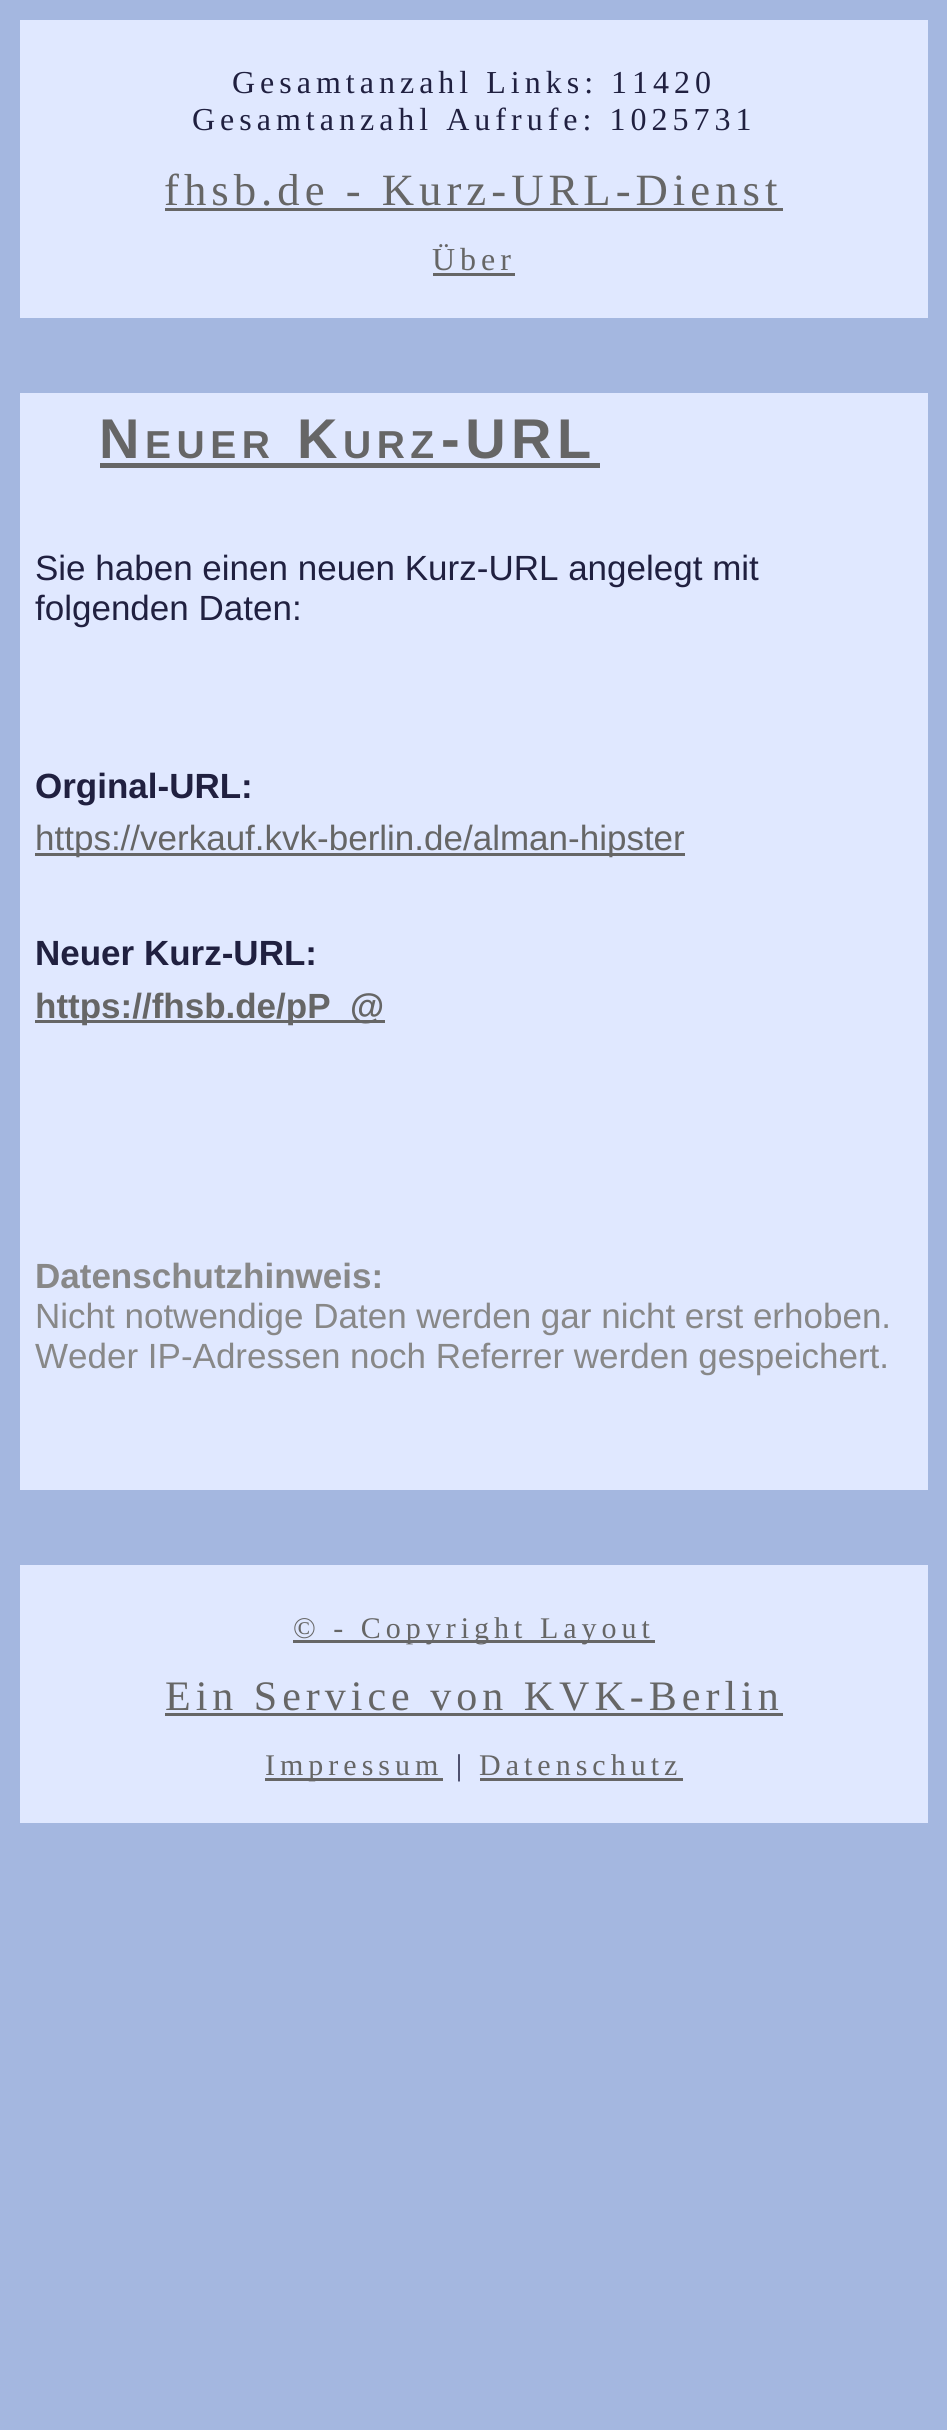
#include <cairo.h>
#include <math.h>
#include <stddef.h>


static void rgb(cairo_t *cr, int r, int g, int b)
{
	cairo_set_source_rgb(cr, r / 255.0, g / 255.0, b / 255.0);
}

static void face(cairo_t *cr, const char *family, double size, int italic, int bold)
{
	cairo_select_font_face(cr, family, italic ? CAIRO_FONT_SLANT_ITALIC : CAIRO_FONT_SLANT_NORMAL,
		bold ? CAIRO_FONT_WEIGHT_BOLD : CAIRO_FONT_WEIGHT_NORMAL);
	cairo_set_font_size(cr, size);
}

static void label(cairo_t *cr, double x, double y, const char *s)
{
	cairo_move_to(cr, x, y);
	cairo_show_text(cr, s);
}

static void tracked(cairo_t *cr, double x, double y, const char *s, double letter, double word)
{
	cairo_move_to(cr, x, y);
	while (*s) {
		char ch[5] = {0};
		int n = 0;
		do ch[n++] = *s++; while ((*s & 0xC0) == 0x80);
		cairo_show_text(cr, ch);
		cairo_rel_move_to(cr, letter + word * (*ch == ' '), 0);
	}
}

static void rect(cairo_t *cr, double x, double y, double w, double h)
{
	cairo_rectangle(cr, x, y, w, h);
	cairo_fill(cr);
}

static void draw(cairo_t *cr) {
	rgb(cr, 164, 183, 224);
	cairo_paint(cr);
	rgb(cr, 224, 232, 255);
	rect(cr, 20, 20, 908, 298);
	face(cr, "Liberation Serif", 32, 0, 0);
	rgb(cr, 32, 32, 64);
	tracked(cr, 232, 93, "Gesamtanzahl Links: 11420", 5, 0);
	tracked(cr, 192, 130, "Gesamtanzahl Aufrufe: 1025731", 5, 0);
	face(cr, "Liberation Serif", 44.75, 0, 0);
	rgb(cr, 102, 102, 102);
	tracked(cr, 164, 205, "fhsb.de - Kurz-URL-Dienst", 5, 0);
	rect(cr, 165, 208, 618, 3);
	face(cr, "Liberation Serif", 32, 0, 0);
	tracked(cr, 432, 270, "Über", 5, 0);
	rect(cr, 433, 273, 82, 3);
	rgb(cr, 224, 232, 255);
	rect(cr, 20, 393, 908, 1097);
	face(cr, "Liberation Sans", 56, 0, 1);
	rgb(cr, 102, 102, 102);
	tracked(cr, 99, 458, "N", 5.5, 0);
	face(cr, "Liberation Sans", 39, 0, 1);
	tracked(cr, 145, 458, "EUER", 5.5, 0);
	rect(cr, 100, 463, 500, 5);
	face(cr, "Liberation Sans", 56, 0, 1);
	tracked(cr, 297, 458, "K", 5.5, 0);
	face(cr, "Liberation Sans", 39, 0, 1);
	tracked(cr, 343, 458, "URZ", 5.5, 0);
	face(cr, "Liberation Sans", 56, 0, 1);
	tracked(cr, 441, 458, "-URL", 5.5, 0);
	face(cr, "Liberation Sans", 35, 0, 0);
	rgb(cr, 32, 32, 64);
	label(cr, 35, 580, "Sie haben einen neuen Kurz-URL angelegt mit");
	label(cr, 35, 620, "folgenden Daten:");
	face(cr, "Liberation Sans", 35, 0, 1);
	label(cr, 35, 798, "Orginal-URL:");
	rgb(cr, 102, 102, 102);
	rect(cr, 35, 853, 650, 3);
	face(cr, "Liberation Sans", 35, 0, 0);
	label(cr, 35, 850, "https://verkauf.kvk-berlin.de/alman-hipster");
	face(cr, "Liberation Sans", 35, 0, 1);
	rgb(cr, 32, 32, 64);
	label(cr, 35, 965, "Neuer Kurz-URL:");
	rgb(cr, 102, 102, 102);
	rect(cr, 35, 1020, 350, 3);
	label(cr, 35, 1018, "https://fhsb.de/pP_@");
	rgb(cr, 136, 136, 136);
	label(cr, 35, 1288, "Datenschutzhinweis:");
	face(cr, "Liberation Sans", 35, 0, 0);
	label(cr, 35, 1328, "Nicht notwendige Daten werden gar nicht erst erhoben.");
	label(cr, 35, 1368, "Weder IP-Adressen noch Referrer werden gespeichert.");
	rgb(cr, 224, 232, 255);
	rect(cr, 20, 1565, 908, 258);
	rgb(cr, 102, 102, 102);
	rect(cr, 293, 1640, 362, 3);
	face(cr, "Liberation Serif", 30, 0, 0);
	tracked(cr, 293, 1638, "© - Copyright Layout", 5, 0);
	face(cr, "Liberation Serif", 42, 0, 0);
	tracked(cr, 165, 1710, "Ein Service von KVK-Berlin", 5, 0);
	rect(cr, 165, 1713, 618, 3);
	rect(cr, 265, 1778, 178, 3);
	face(cr, "Liberation Serif", 30, 0, 0);
	tracked(cr, 265, 1775, "Impressum", 5, 0);
	rgb(cr, 32, 32, 64);
	tracked(cr, 456, 1775, "|", 5, 0);
	rgb(cr, 102, 102, 102);
	tracked(cr, 479, 1775, "Datenschutz", 5, 0);
	rect(cr, 480, 1778, 203, 3);
}

int main(void) {
	cairo_surface_t *surface = cairo_image_surface_create(CAIRO_FORMAT_RGB24, 947, 2430);
	cairo_t *cr = cairo_create(surface);
	cairo_font_options_t *options = cairo_font_options_create();
	cairo_font_options_set_hint_metrics(options, CAIRO_HINT_METRICS_OFF);
	cairo_font_options_set_hint_style(options, CAIRO_HINT_STYLE_NONE);
	cairo_set_font_options(cr, options);
	cairo_set_miter_limit(cr, 4);
	draw(cr);
	cairo_surface_write_to_png(surface, "render.png");
	cairo_font_options_destroy(options);
	cairo_destroy(cr);
	cairo_surface_destroy(surface);
	return 0;
}
